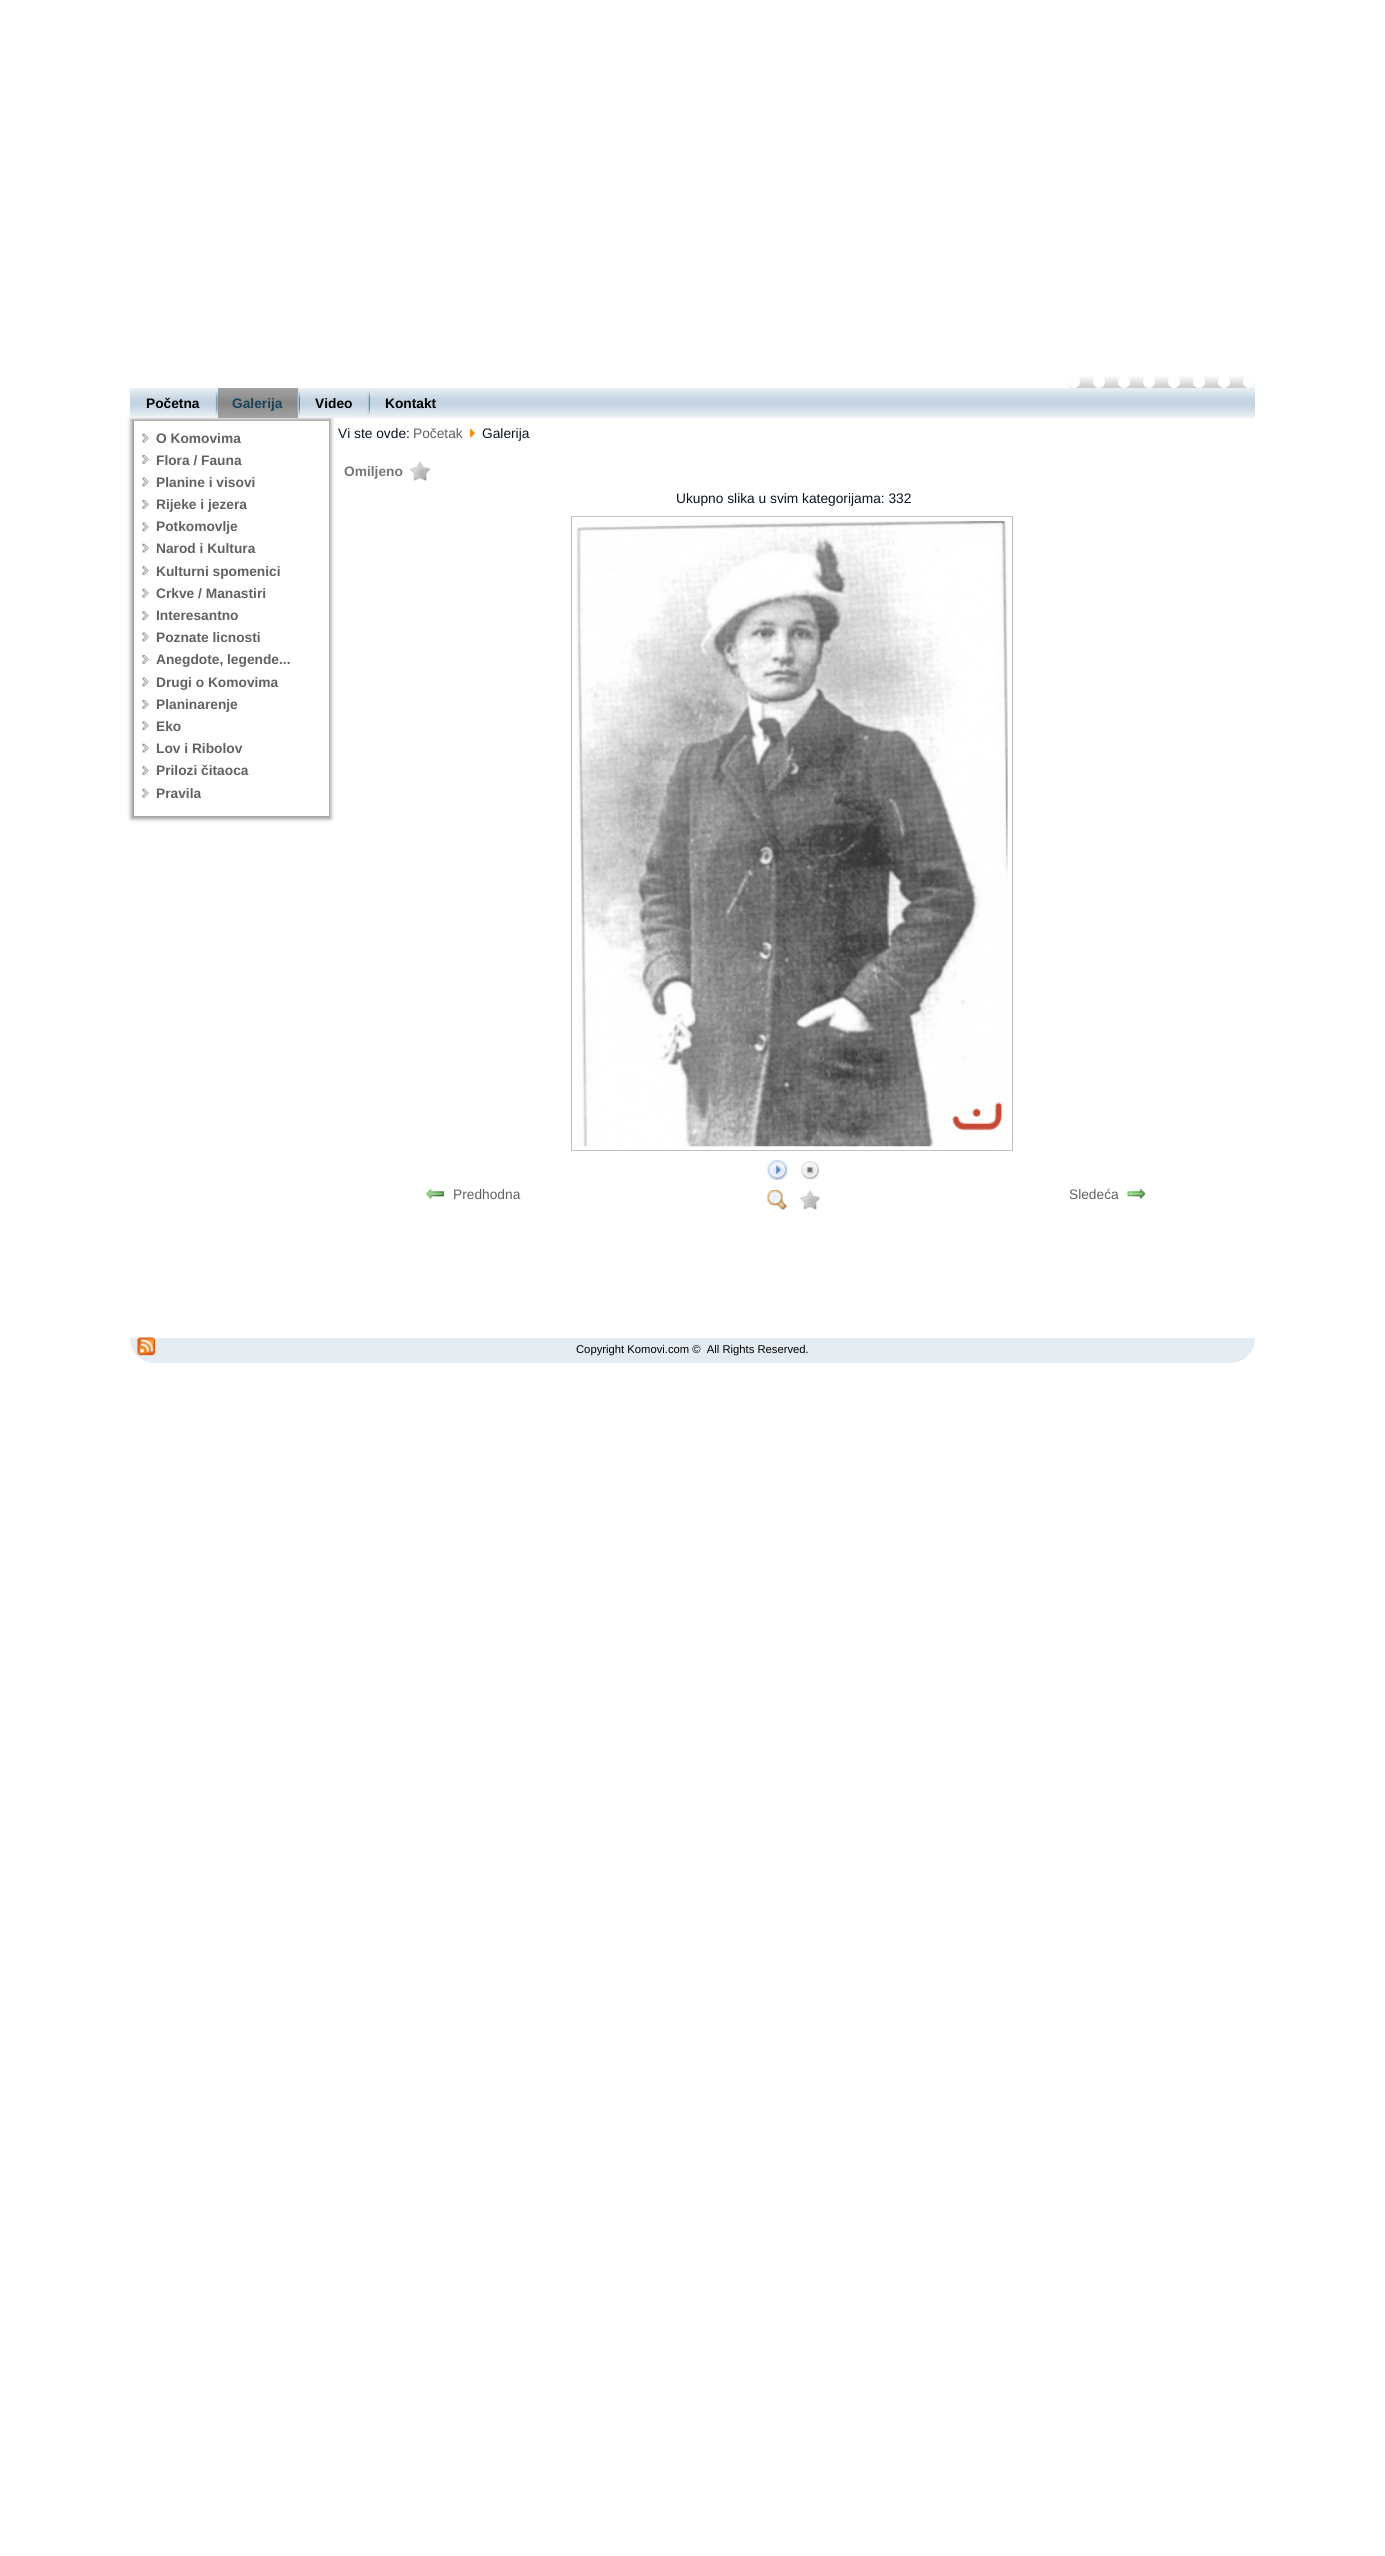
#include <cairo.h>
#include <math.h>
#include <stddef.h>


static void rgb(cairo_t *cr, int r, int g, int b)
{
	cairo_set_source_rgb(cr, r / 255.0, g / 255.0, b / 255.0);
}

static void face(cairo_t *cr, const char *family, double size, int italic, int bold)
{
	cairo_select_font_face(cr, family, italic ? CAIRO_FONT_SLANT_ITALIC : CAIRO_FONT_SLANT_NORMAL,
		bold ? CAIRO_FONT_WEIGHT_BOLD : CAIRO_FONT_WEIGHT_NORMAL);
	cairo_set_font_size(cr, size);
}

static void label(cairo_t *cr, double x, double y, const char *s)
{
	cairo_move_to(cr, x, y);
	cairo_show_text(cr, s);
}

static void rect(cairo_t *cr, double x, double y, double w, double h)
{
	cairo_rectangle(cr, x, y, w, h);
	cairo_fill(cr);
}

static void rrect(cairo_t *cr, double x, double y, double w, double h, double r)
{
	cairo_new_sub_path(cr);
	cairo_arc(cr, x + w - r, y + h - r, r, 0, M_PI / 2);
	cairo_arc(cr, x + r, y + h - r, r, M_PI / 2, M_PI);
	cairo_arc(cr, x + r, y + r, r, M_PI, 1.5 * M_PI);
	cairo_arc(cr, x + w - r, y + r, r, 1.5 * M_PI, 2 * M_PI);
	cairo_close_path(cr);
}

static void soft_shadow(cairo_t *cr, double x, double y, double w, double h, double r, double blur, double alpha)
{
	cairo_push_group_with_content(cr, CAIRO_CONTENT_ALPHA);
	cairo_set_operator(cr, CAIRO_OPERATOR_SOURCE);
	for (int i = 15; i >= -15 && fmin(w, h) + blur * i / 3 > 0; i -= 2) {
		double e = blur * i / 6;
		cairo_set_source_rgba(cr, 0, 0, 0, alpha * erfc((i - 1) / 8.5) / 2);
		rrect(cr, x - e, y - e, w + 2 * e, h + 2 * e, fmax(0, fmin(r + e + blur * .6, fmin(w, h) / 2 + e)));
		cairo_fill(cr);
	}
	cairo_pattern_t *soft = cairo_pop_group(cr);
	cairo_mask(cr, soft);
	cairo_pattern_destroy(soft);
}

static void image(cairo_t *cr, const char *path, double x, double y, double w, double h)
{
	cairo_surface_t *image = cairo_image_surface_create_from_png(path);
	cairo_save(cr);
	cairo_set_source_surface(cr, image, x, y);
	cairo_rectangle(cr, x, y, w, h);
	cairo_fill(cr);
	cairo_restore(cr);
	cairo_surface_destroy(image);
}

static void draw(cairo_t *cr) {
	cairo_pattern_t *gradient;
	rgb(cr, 255, 255, 255);
	cairo_paint(cr);
	gradient = cairo_pattern_create_linear(1161, 375, 1161, 388);
	cairo_pattern_add_color_stop_rgba(gradient, 0, 1, 1, 1, 1);
	cairo_pattern_add_color_stop_rgba(gradient, 1, 0.792, 0.792, 0.792, 1);
	cairo_set_source(cr, gradient);
	cairo_pattern_destroy(gradient);
	rrect(cr, 1068, 375, 187, 13, 5);
	cairo_fill(cr);
	rgb(cr, 255, 255, 255);
	rrect(cr, 1068, 375, 12, 13, 6);
	cairo_fill(cr);
	rrect(cr, 1093, 375, 12, 13, 6);
	cairo_fill(cr);
	rrect(cr, 1118, 375, 12, 13, 6);
	cairo_fill(cr);
	rrect(cr, 1143, 375, 12, 13, 6);
	cairo_fill(cr);
	rrect(cr, 1168, 375, 12, 13, 6);
	cairo_fill(cr);
	rrect(cr, 1193, 375, 12, 13, 6);
	cairo_fill(cr);
	rrect(cr, 1218, 375, 12, 13, 6);
	cairo_fill(cr);
	rrect(cr, 1243, 375, 12, 13, 6);
	cairo_fill(cr);
	rgb(cr, 0, 0, 0);
	soft_shadow(cr, 131, 419, 200, 400, 0, 2, 0.4);
	gradient = cairo_pattern_create_linear(693, 387, 693, 418);
	cairo_pattern_add_color_stop_rgba(gradient, 0, 0.933, 0.953, 0.965, 1);
	cairo_pattern_add_color_stop_rgba(gradient, 0.4, 0.773, 0.835, 0.886, 1);
	cairo_pattern_add_color_stop_rgba(gradient, 0.5, 0.761, 0.824, 0.878, 1);
	cairo_pattern_add_color_stop_rgba(gradient, 0.6, 0.773, 0.835, 0.886, 1);
	cairo_pattern_add_color_stop_rgba(gradient, 1, 0.933, 0.953, 0.965, 1);
	cairo_set_source(cr, gradient);
	cairo_pattern_destroy(gradient);
	rect(cr, 130, 388, 1125, 30);
	face(cr, "Liberation Sans", 13.75, 0, 1);
	rgb(cr, 0, 0, 0);
	label(cr, 146, 408, "Početna");
	image(cr, "image0.png", 215, 391, 3, 24);
	gradient = cairo_pattern_create_linear(258, 388, 258, 418);
	cairo_pattern_add_color_stop_rgba(gradient, 0, 0.639, 0.639, 0.639, 1);
	cairo_pattern_add_color_stop_rgba(gradient, 0.4, 0.549, 0.549, 0.549, 1);
	cairo_pattern_add_color_stop_rgba(gradient, 0.5, 0.541, 0.541, 0.541, 1);
	cairo_pattern_add_color_stop_rgba(gradient, 0.6, 0.549, 0.549, 0.549, 1);
	cairo_pattern_add_color_stop_rgba(gradient, 1, 0.639, 0.639, 0.639, 1);
	cairo_set_source(cr, gradient);
	cairo_pattern_destroy(gradient);
	rect(cr, 218, 388, 80, 30);
	rgb(cr, 26, 68, 91);
	label(cr, 232, 408, "Galerija");
	image(cr, "image1.png", 297, 391, 3, 24);
	rgb(cr, 0, 0, 0);
	label(cr, 315, 408, "Video");
	image(cr, "image2.png", 367, 391, 3, 24);
	label(cr, 385, 408, "Kontakt");
	rgb(cr, 255, 255, 255);
	rect(cr, 134, 421, 195, 395);
	image(cr, "image3.png", 142, 433, 7, 10);
	rgb(cr, 97, 97, 97);
	label(cr, 156, 443, "O Komovima");
	image(cr, "image4.png", 142, 455, 7, 9);
	label(cr, 156, 465, "Flora / Fauna");
	image(cr, "image5.png", 142, 477, 7, 10);
	label(cr, 156, 487, "Planine i visovi");
	image(cr, "image4.png", 142, 500, 7, 9);
	label(cr, 156, 509, "Rijeke i jezera");
	image(cr, "image5.png", 142, 522, 7, 10);
	label(cr, 156, 531, "Potkomovlje");
	image(cr, "image3.png", 142, 543, 7, 10);
	label(cr, 156, 553, "Narod i Kultura");
	image(cr, "image6.png", 142, 566, 7, 9);
	label(cr, 156, 576, "Kulturni spomenici");
	image(cr, "image3.png", 142, 588, 7, 10);
	label(cr, 156, 598, "Crkve / Manastiri");
	image(cr, "image6.png", 142, 611, 7, 9);
	label(cr, 156, 620, "Interesantno");
	image(cr, "image5.png", 142, 632, 7, 10);
	label(cr, 156, 642, "Poznate licnosti");
	image(cr, "image4.png", 142, 655, 7, 9);
	label(cr, 156, 664, "Anegdote, legende...");
	image(cr, "image5.png", 142, 677, 7, 10);
	label(cr, 156, 687, "Drugi o Komovima");
	image(cr, "image4.png", 142, 700, 7, 9);
	label(cr, 156, 709, "Planinarenje");
	image(cr, "image6.png", 142, 721, 7, 9);
	label(cr, 156, 731, "Eko");
	image(cr, "image3.png", 142, 743, 7, 10);
	label(cr, 156, 753, "Lov i Ribolov");
	image(cr, "image6.png", 142, 766, 7, 9);
	label(cr, 156, 775, "Prilozi čitaoca");
	image(cr, "image3.png", 142, 788, 7, 10);
	label(cr, 156, 798, "Pravila");
	face(cr, "Liberation Sans", 13.75, 0, 0);
	rgb(cr, 11, 20, 30);
	label(cr, 338, 438, "Vi ste ovde:");
	rgb(cr, 97, 97, 97);
	label(cr, 413, 438, "Početak");
	image(cr, "image7.png", 469, 428, 7, 10);
	rgb(cr, 11, 20, 30);
	label(cr, 482, 438, "Galerija");
	face(cr, "Liberation Sans", 13.75, 0, 1);
	rgb(cr, 119, 119, 119);
	label(cr, 344, 476, "Omiljeno");
	image(cr, "image8.png", 410, 461, 20, 21);
	face(cr, "Liberation Sans", 13.75, 0, 0);
	rgb(cr, 11, 20, 30);
	label(cr, 676, 503, "Ukupno slika u svim kategorijama: 332");
	cairo_rectangle(cr, 571.5, 516.5, 441, 634);
	rgb(cr, 192, 192, 192);
	cairo_set_line_width(cr, 1);
	cairo_stroke(cr);
	image(cr, "image9.png", 576, 521, 432, 626);
	image(cr, "image10.png", 767, 1160, 21, 20);
	image(cr, "image11.png", 801, 1161, 18, 18);
	image(cr, "image12.png", 426, 1188, 18, 11);
	rgb(cr, 97, 97, 97);
	label(cr, 453, 1199, "Predhodna");
	image(cr, "image13.png", 767, 1190, 20, 20);
	image(cr, "image14.png", 800, 1190, 20, 20);
	label(cr, 1069, 1199, "Sledeća");
	image(cr, "image15.png", 1127, 1188, 19, 11);
	rgb(cr, 228, 236, 241);
	cairo_new_path(cr);
	cairo_move_to(cr, 130, 1338);
	cairo_line_to(cr, 1255, 1338);
	cairo_curve_to(cr, 1255, 1352, 1244, 1363, 1230, 1363);
	cairo_line_to(cr, 155, 1363);
	cairo_curve_to(cr, 141, 1363, 130, 1352, 130, 1338);
	cairo_close_path(cr);
	cairo_fill(cr);
	image(cr, "image16.png", 137, 1337, 19, 19);
	face(cr, "Liberation Sans", 11.25, 0, 0);
	rgb(cr, 0, 0, 0);
	label(cr, 576, 1353, "Copyright Komovi.com ©  All Rights Reserved.");
}

int main(void) {
	cairo_surface_t *surface = cairo_image_surface_create(CAIRO_FORMAT_RGB24, 1385, 2556);
	cairo_t *cr = cairo_create(surface);
	cairo_font_options_t *options = cairo_font_options_create();
	cairo_font_options_set_hint_metrics(options, CAIRO_HINT_METRICS_OFF);
	cairo_font_options_set_hint_style(options, CAIRO_HINT_STYLE_NONE);
	cairo_set_font_options(cr, options);
	cairo_set_miter_limit(cr, 4);
	draw(cr);
	cairo_surface_write_to_png(surface, "render.png");
	cairo_font_options_destroy(options);
	cairo_destroy(cr);
	cairo_surface_destroy(surface);
	return 0;
}
